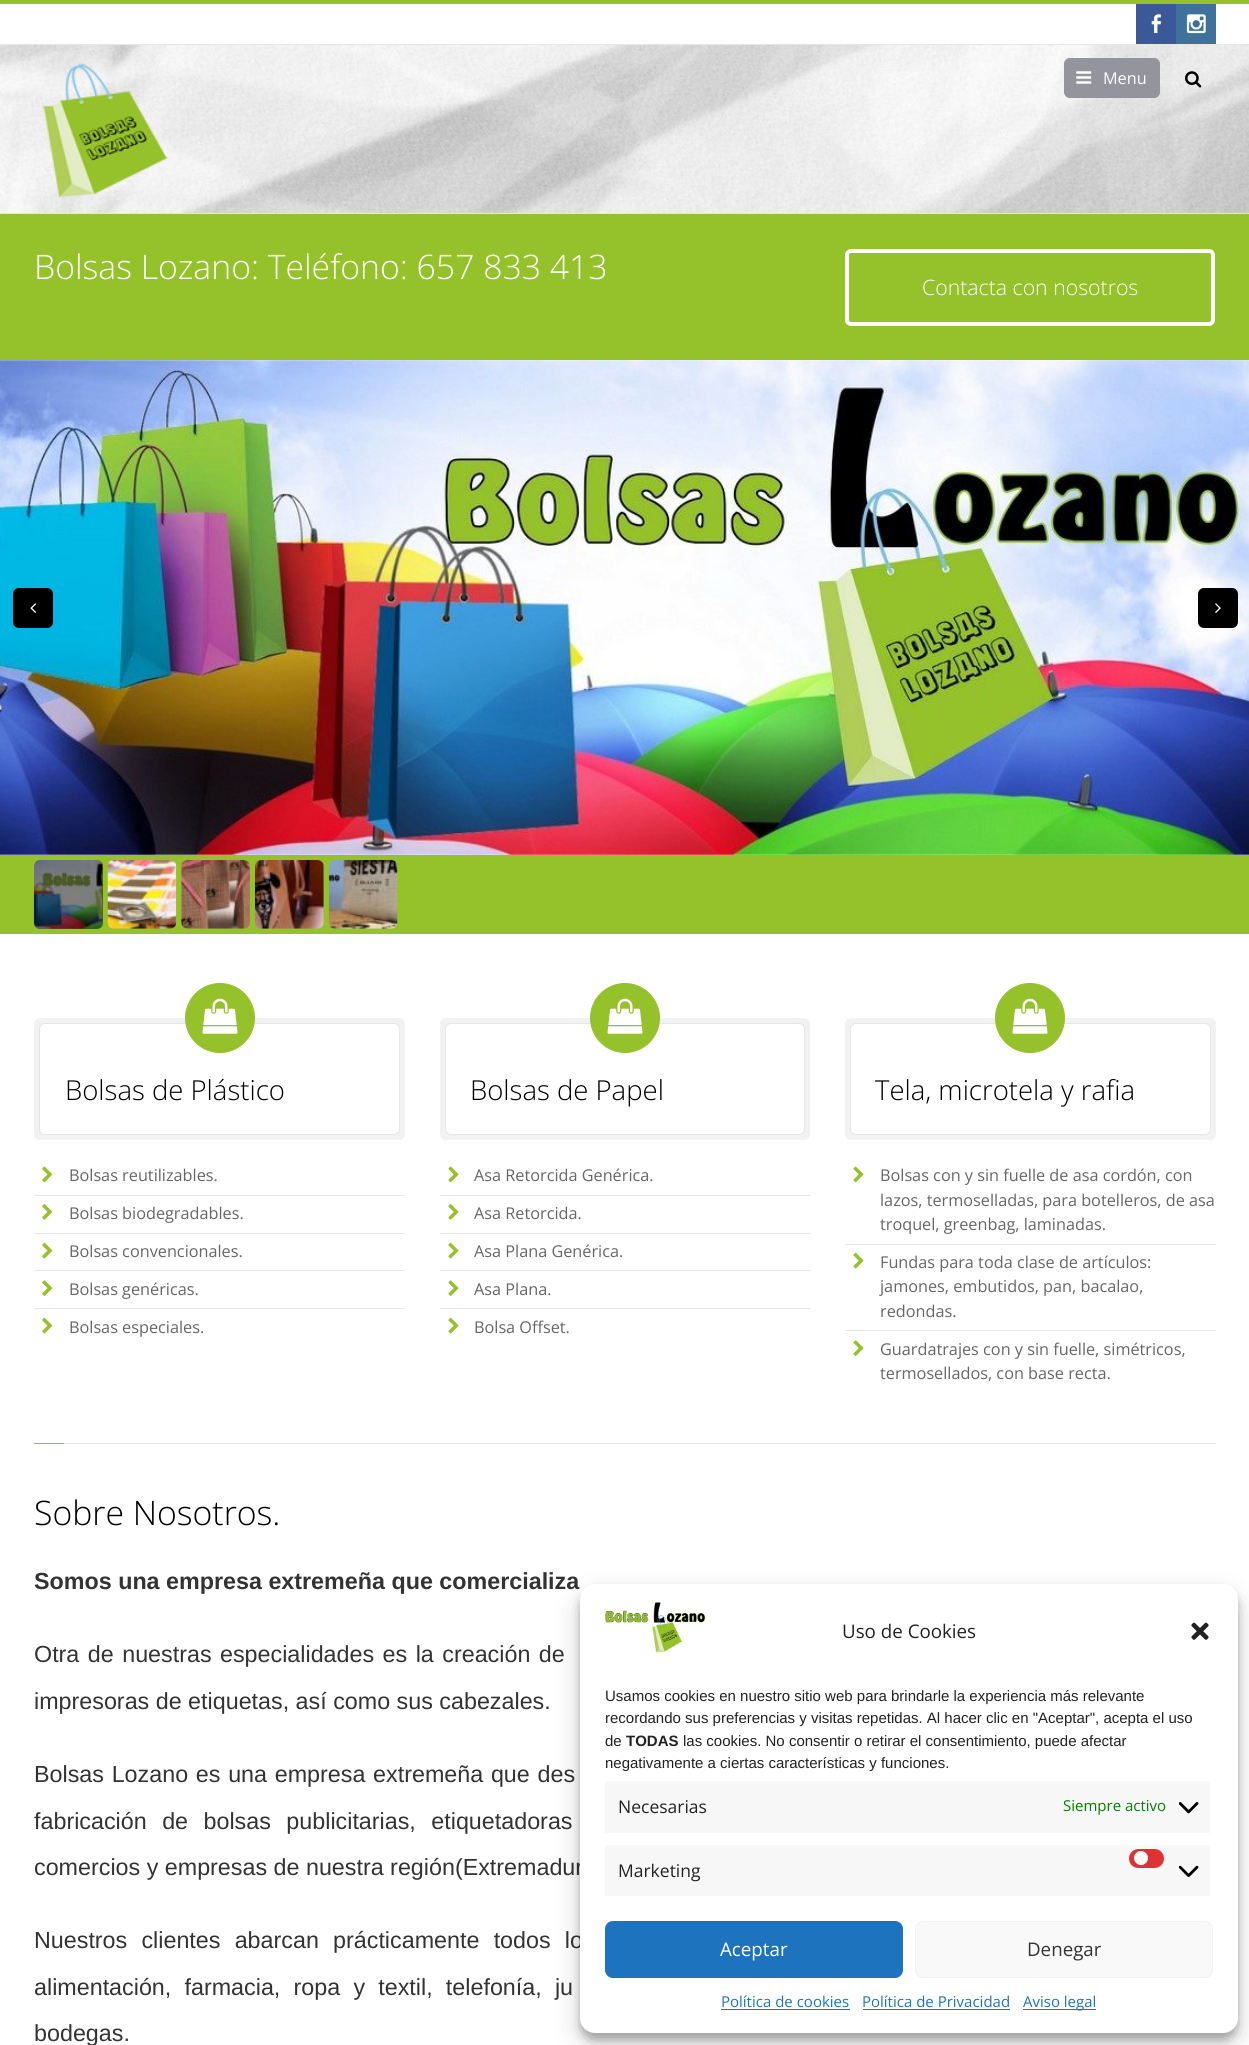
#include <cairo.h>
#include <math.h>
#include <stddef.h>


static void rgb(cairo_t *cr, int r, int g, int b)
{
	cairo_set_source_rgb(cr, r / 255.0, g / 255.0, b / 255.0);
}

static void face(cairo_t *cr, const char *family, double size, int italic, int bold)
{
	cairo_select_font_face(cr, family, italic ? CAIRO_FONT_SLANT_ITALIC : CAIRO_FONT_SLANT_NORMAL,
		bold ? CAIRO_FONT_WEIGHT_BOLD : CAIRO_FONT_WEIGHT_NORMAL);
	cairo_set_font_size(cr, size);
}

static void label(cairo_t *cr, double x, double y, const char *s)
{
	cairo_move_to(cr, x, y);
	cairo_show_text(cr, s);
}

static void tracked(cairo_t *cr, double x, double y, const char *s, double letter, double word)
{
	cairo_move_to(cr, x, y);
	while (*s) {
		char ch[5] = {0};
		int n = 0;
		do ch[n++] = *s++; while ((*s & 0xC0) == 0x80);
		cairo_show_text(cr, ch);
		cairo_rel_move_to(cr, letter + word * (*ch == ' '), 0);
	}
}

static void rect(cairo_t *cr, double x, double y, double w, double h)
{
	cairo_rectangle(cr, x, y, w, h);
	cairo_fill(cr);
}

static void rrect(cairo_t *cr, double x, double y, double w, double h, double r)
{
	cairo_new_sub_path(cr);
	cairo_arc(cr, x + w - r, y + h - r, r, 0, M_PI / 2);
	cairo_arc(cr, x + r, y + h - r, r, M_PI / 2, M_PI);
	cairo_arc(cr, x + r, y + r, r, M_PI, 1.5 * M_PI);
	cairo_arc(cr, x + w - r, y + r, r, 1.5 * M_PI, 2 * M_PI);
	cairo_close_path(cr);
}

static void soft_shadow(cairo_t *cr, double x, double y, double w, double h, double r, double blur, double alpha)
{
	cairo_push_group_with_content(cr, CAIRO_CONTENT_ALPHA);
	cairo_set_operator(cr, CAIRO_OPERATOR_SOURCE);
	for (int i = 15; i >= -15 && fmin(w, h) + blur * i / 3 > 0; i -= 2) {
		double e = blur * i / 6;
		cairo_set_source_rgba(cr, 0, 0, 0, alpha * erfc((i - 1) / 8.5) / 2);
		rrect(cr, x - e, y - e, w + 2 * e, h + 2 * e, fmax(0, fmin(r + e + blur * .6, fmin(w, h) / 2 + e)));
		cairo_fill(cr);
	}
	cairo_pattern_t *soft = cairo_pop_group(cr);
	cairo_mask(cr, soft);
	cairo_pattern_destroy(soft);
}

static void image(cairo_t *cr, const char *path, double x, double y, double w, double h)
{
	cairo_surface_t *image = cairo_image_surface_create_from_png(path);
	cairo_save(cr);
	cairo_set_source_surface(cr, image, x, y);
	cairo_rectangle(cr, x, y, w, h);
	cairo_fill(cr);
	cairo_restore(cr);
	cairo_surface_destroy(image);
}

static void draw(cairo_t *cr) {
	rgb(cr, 255, 255, 255);
	cairo_paint(cr);
	rgb(cr, 149, 193, 43);
	rect(cr, 0, 0, 1249, 4);
	rgb(cr, 230, 230, 230);
	rect(cr, 0, 44, 1249, 1);
	rgb(cr, 59, 89, 152);
	rect(cr, 1136, 4, 40, 40);
	image(cr, "image0.png", 1151, 14, 11, 20);
	rgb(cr, 63, 114, 155);
	rect(cr, 1176, 4, 40, 40);
	image(cr, "image1.png", 1186, 14, 20, 20);
	image(cr, "image2.png", 0, 45, 1249, 168);
	rgb(cr, 230, 230, 230);
	rect(cr, 0, 213, 1249, 1);
	image(cr, "image3.png", 42, 63, 126, 135);
	rgb(cr, 148, 148, 156);
	rrect(cr, 1064.5, 58.5, 95, 39, 5.5);
	cairo_fill_preserve(cr);
	cairo_set_line_width(cr, 1);
	cairo_stroke(cr);
	image(cr, "image4.png", 1076, 71, 16, 13);
	face(cr, "Open Sans", 16.25, 0, 0);
	rgb(cr, 255, 255, 255);
	label(cr, 1103, 84, "Menu");
	image(cr, "image5.png", 1185, 71, 17, 17);
	rgb(cr, 149, 193, 43);
	rect(cr, 0, 214, 1249, 720);
	face(cr, "Open Sans Light", 33.75, 0, 0);
	rgb(cr, 255, 255, 255);
	label(cr, 34, 279, "Bolsas Lozano: Teléfono: 657 833 413");
	rrect(cr, 847, 251, 366, 73, 4);
	cairo_set_line_width(cr, 4);
	cairo_stroke(cr);
	face(cr, "Open Sans Light", 21.25, 0, 0);
	label(cr, 922, 295, "Contacta con nosotros");
	image(cr, "image6.png", 0, 360, 1249, 495);
	rgb(cr, 0, 0, 0);
	rrect(cr, 13, 588, 40, 40, 6);
	cairo_fill(cr);
	image(cr, "image7.png", 30, 603, 7, 10);
	rrect(cr, 1198, 588, 40, 40, 6);
	cairo_fill(cr);
	image(cr, "image8.png", 1215, 603, 6, 10);
	image(cr, "image9.png", 33, 860, 70, 69);
	cairo_set_source_rgba(cr, 0, 0, 0, 0.5);
	rrect(cr, 34, 860, 69, 69, 6);
	cairo_fill(cr);
	image(cr, "image10.png", 107, 860, 70, 69);
	image(cr, "image11.png", 181, 860, 69, 69);
	image(cr, "image12.png", 255, 860, 69, 69);
	image(cr, "image13.png", 328, 860, 70, 69);
	rgb(cr, 242, 242, 242);
	rrect(cr, 34, 1018, 371, 122, 6);
	cairo_fill(cr);
	rgb(cr, 255, 255, 255);
	rrect(cr, 39.5, 1023.5, 360, 111, 5.5);
	cairo_fill_preserve(cr);
	rgb(cr, 230, 230, 230);
	cairo_set_line_width(cr, 1);
	cairo_stroke(cr);
	rgb(cr, 149, 193, 43);
	cairo_arc(cr, 220, 1018, 34.5, 0, 2 * M_PI);
	cairo_fill_preserve(cr);
	cairo_stroke(cr);
	image(cr, "image14.png", 202, 998, 36, 36);
	face(cr, "Open Sans Light", 27.5, 0, 0);
	rgb(cr, 0, 0, 0);
	label(cr, 65, 1100, "Bolsas de Plástico");
	image(cr, "image15.png", 42, 1166, 11, 17);
	face(cr, "Open Sans", 16.25, 0, 0);
	rgb(cr, 102, 102, 102);
	label(cr, 69, 1181, "Bolsas reutilizables.");
	rgb(cr, 230, 230, 230);
	rect(cr, 34, 1195, 371, 1);
	image(cr, "image16.png", 42, 1204, 11, 16);
	rgb(cr, 102, 102, 102);
	label(cr, 69, 1219, "Bolsas biodegradables.");
	rgb(cr, 230, 230, 230);
	rect(cr, 34, 1233, 371, 1);
	image(cr, "image17.png", 42, 1242, 11, 17);
	rgb(cr, 102, 102, 102);
	label(cr, 69, 1257, "Bolsas convencionales.");
	rgb(cr, 230, 230, 230);
	rect(cr, 34, 1270, 371, 1);
	image(cr, "image18.png", 42, 1280, 11, 16);
	rgb(cr, 102, 102, 102);
	label(cr, 69, 1295, "Bolsas genéricas.");
	rgb(cr, 230, 230, 230);
	rect(cr, 34, 1308, 371, 1);
	image(cr, "image17.png", 42, 1317, 11, 17);
	rgb(cr, 102, 102, 102);
	label(cr, 69, 1333, "Bolsas especiales.");
	rgb(cr, 242, 242, 242);
	rrect(cr, 440, 1018, 370, 122, 6);
	cairo_fill(cr);
	rgb(cr, 255, 255, 255);
	rrect(cr, 445.5, 1023.5, 359, 111, 5.5);
	cairo_fill_preserve(cr);
	rgb(cr, 230, 230, 230);
	cairo_stroke(cr);
	rgb(cr, 149, 193, 43);
	cairo_arc(cr, 625, 1018, 34.5, 0, 2 * M_PI);
	cairo_fill_preserve(cr);
	cairo_stroke(cr);
	image(cr, "image14.png", 607, 998, 36, 36);
	face(cr, "Open Sans Light", 27.5, 0, 0);
	rgb(cr, 0, 0, 0);
	label(cr, 470, 1100, "Bolsas de Papel");
	image(cr, "image19.png", 448, 1166, 11, 17);
	face(cr, "Open Sans", 16.25, 0, 0);
	rgb(cr, 102, 102, 102);
	label(cr, 474, 1181, "Asa Retorcida Genérica.");
	rgb(cr, 230, 230, 230);
	rect(cr, 440, 1195, 370, 1);
	image(cr, "image20.png", 448, 1204, 11, 16);
	rgb(cr, 102, 102, 102);
	label(cr, 474, 1219, "Asa Retorcida.");
	rgb(cr, 230, 230, 230);
	rect(cr, 440, 1233, 370, 1);
	image(cr, "image21.png", 448, 1242, 11, 17);
	rgb(cr, 102, 102, 102);
	label(cr, 474, 1257, "Asa Plana Genérica.");
	rgb(cr, 230, 230, 230);
	rect(cr, 440, 1270, 370, 1);
	image(cr, "image22.png", 448, 1280, 11, 16);
	rgb(cr, 102, 102, 102);
	label(cr, 474, 1295, "Asa Plana.");
	rgb(cr, 230, 230, 230);
	rect(cr, 440, 1308, 370, 1);
	image(cr, "image21.png", 448, 1317, 11, 17);
	rgb(cr, 102, 102, 102);
	label(cr, 474, 1333, "Bolsa Offset.");
	rgb(cr, 242, 242, 242);
	rrect(cr, 845, 1018, 371, 122, 6);
	cairo_fill(cr);
	rgb(cr, 255, 255, 255);
	rrect(cr, 850.5, 1023.5, 360, 111, 5.5);
	cairo_fill_preserve(cr);
	rgb(cr, 230, 230, 230);
	cairo_stroke(cr);
	rgb(cr, 149, 193, 43);
	cairo_arc(cr, 1030, 1018, 34.5, 0, 2 * M_PI);
	cairo_fill_preserve(cr);
	cairo_stroke(cr);
	image(cr, "image14.png", 1012, 998, 36, 36);
	face(cr, "Open Sans Light", 27.5, 0, 0);
	rgb(cr, 0, 0, 0);
	label(cr, 875, 1100, "Tela, microtela y rafia");
	image(cr, "image19.png", 853, 1166, 11, 17);
	face(cr, "Open Sans", 16.25, 0, 0);
	rgb(cr, 102, 102, 102);
	label(cr, 880, 1181, "Bolsas con y sin fuelle de asa cordón, con");
	label(cr, 880, 1206, "lazos, termoselladas, para botelleros, de asa");
	label(cr, 880, 1230, "troquel, greenbag, laminadas.");
	rgb(cr, 230, 230, 230);
	rect(cr, 845, 1244, 371, 1);
	image(cr, "image21.png", 853, 1252, 11, 17);
	rgb(cr, 102, 102, 102);
	label(cr, 880, 1268, "Fundas para toda clase de artículos:");
	label(cr, 880, 1292, "jamones, embutidos, pan, bacalao,");
	label(cr, 880, 1317, "redondas.");
	rgb(cr, 230, 230, 230);
	rect(cr, 845, 1330, 371, 1);
	image(cr, "image22.png", 853, 1340, 11, 16);
	rgb(cr, 102, 102, 102);
	label(cr, 880, 1355, "Guardatrajes con y sin fuelle, simétricos,");
	label(cr, 880, 1379, "termosellados, con base recta.");
	rgb(cr, 230, 230, 230);
	rect(cr, 64, 1443, 1152, 1);
	rgb(cr, 149, 193, 43);
	rect(cr, 34, 1443, 30, 1);
	face(cr, "Open Sans Light", 33.75, 0, 0);
	rgb(cr, 0, 0, 0);
	label(cr, 34, 1525, "Sobre Nosotros.");
	face(cr, "Liberation Sans", 23.3, 0, 1);
	rgb(cr, 51, 51, 51);
	label(cr, 34, 1589, "Somos una empresa extremeña que comercializa");
	face(cr, "Liberation Sans", 23.3, 0, 0);
	tracked(cr, 34, 1662, "Otra de nuestras especialidades es la creación de", 0, 2);
	label(cr, 34, 1709, "impresoras de etiquetas, así como sus cabezales.");
	tracked(cr, 34, 1782, "Bolsas Lozano es una empresa extremeña que des", 0, 1.25);
	tracked(cr, 34, 1829, "fabricación de bolsas publicitarias, etiquetadoras", 0, 9);
	label(cr, 34, 1875, "comercios y empresas de nuestra región(Extremadur");
	tracked(cr, 34, 1948, "Nuestros clientes abarcan prácticamente todos lo", 0, 7.75);
	tracked(cr, 34, 1995, "alimentación, farmacia, ropa y textil, telefonía, ju", 0, 6.75);
	label(cr, 34, 2041, "bodegas.");
	rgb(cr, 0, 0, 0);
	soft_shadow(cr, 580, 1591, 658, 449, 15, 4, 0.23);
	soft_shadow(cr, 580, 1596, 658, 449, 15, 12.5, 0.19);
	rgb(cr, 255, 255, 255);
	rrect(cr, 580, 1584, 658, 449, 15);
	cairo_fill(cr);
	image(cr, "image23.png", 605, 1602, 100, 51);
	face(cr, "Open Sans", 18.75, 0, 0);
	rgb(cr, 34, 34, 34);
	label(cr, 842, 1638, "Uso de Cookies");
	image(cr, "image24.png", 1191, 1622, 18, 18);
	face(cr, "Liberation Sans", 15, 0, 0);
	label(cr, 605, 1701, "Usamos cookies en nuestro sitio web para brindarle la experiencia más relevante");
	label(cr, 605, 1723, "recordando sus preferencias y visitas repetidas. Al hacer clic en \"Aceptar\", acepta el uso");
	label(cr, 605, 1746, "de");
	face(cr, "Liberation Sans", 15, 0, 1);
	label(cr, 626, 1746, "TODAS");
	face(cr, "Liberation Sans", 15, 0, 0);
	label(cr, 683, 1746, "las cookies. No consentir o retirar el consentimiento, puede afectar");
	label(cr, 605, 1768, "negativamente a ciertas características y funciones.");
	rgb(cr, 247, 247, 247);
	rect(cr, 605, 1781, 605, 52);
	face(cr, "Open Sans", 17.5, 0, 0);
	rgb(cr, 34, 34, 34);
	label(cr, 618, 1813, "Necesarias");
	face(cr, "Open Sans", 15, 0, 0);
	rgb(cr, 0, 128, 0);
	label(cr, 1063, 1811, "Siempre activo");
	image(cr, "image25.png", 1179, 1802, 20, 12);
	rgb(cr, 247, 247, 247);
	rect(cr, 605, 1845, 605, 51);
	rgb(cr, 221, 51, 51);
	rrect(cr, 1129, 1849, 35, 19, 9.5);
	cairo_fill(cr);
	rgb(cr, 255, 255, 255);
	cairo_arc(cr, 1141, 1858, 7, 0, 2 * M_PI);
	cairo_fill(cr);
	face(cr, "Open Sans", 17.5, 0, 0);
	rgb(cr, 34, 34, 34);
	label(cr, 618, 1877, "Marketing");
	image(cr, "image26.png", 1179, 1865, 20, 12);
	rgb(cr, 30, 115, 190);
	rrect(cr, 605.5, 1921.5, 297, 56, 7.5);
	cairo_fill_preserve(cr);
	cairo_stroke(cr);
	face(cr, "Open Sans", 18.75, 0, 0);
	rgb(cr, 255, 255, 255);
	label(cr, 720, 1956, "Aceptar");
	rgb(cr, 249, 249, 249);
	rrect(cr, 915.5, 1921.5, 297, 56, 7.5);
	cairo_fill_preserve(cr);
	rgb(cr, 242, 242, 242);
	cairo_stroke(cr);
	rgb(cr, 51, 51, 51);
	label(cr, 1027, 1956, "Denegar");
	face(cr, "Open Sans", 15, 0, 0);
	rgb(cr, 30, 115, 190);
	label(cr, 721, 2007, "Política de cookies");
	rect(cr, 721, 2009, 129, 1);
	label(cr, 862, 2007, "Política de Privacidad");
	rect(cr, 863, 2009, 147, 1);
	rect(cr, 1023, 2009, 73, 1);
	label(cr, 1023, 2007, "Aviso legal");
}

int main(void) {
	cairo_surface_t *surface = cairo_image_surface_create(CAIRO_FORMAT_RGB24, 1249, 2045);
	cairo_t *cr = cairo_create(surface);
	cairo_font_options_t *options = cairo_font_options_create();
	cairo_font_options_set_hint_metrics(options, CAIRO_HINT_METRICS_OFF);
	cairo_font_options_set_hint_style(options, CAIRO_HINT_STYLE_NONE);
	cairo_set_font_options(cr, options);
	cairo_set_miter_limit(cr, 4);
	draw(cr);
	cairo_surface_write_to_png(surface, "render.png");
	cairo_font_options_destroy(options);
	cairo_destroy(cr);
	cairo_surface_destroy(surface);
	return 0;
}
